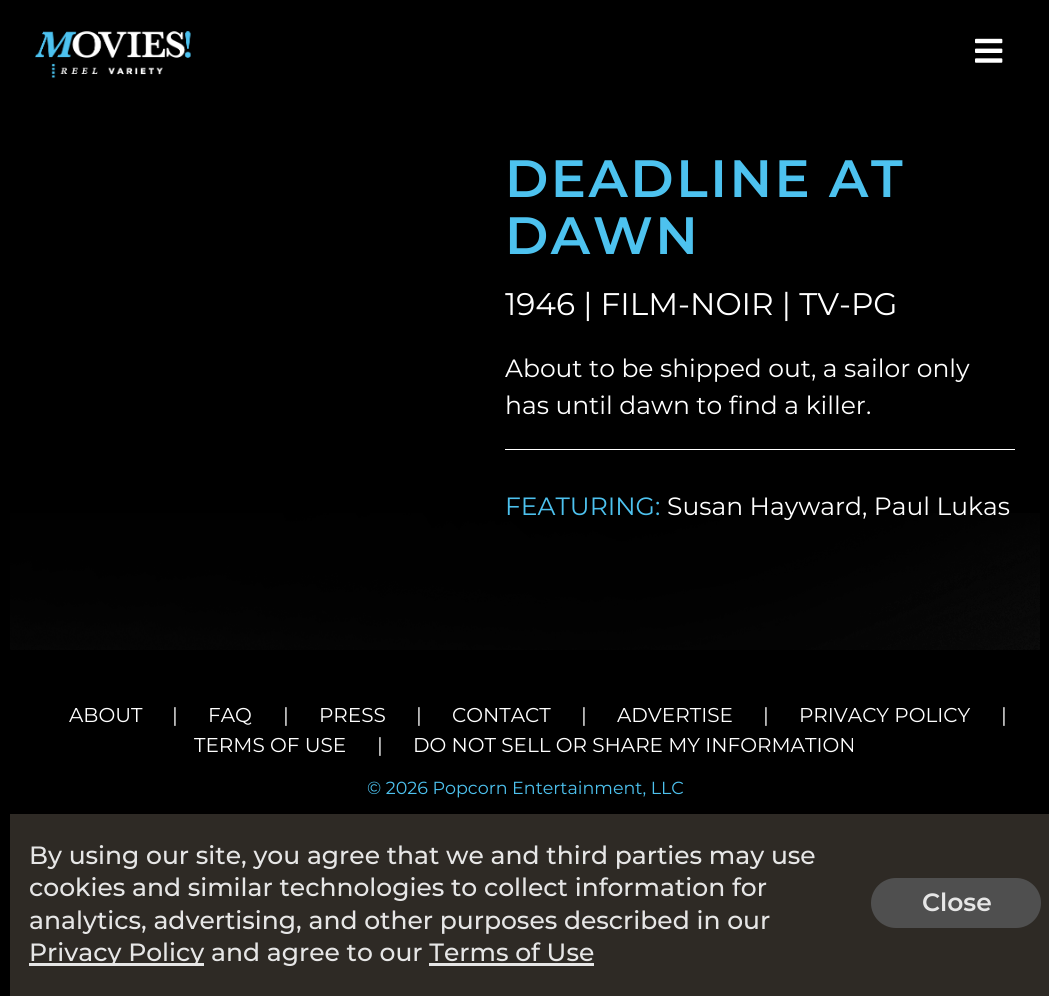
#include <cairo.h>
#include <math.h>
#include <stddef.h>


static void rgb(cairo_t *cr, int r, int g, int b)
{
	cairo_set_source_rgb(cr, r / 255.0, g / 255.0, b / 255.0);
}

static void face(cairo_t *cr, const char *family, double size, int italic, int bold)
{
	cairo_select_font_face(cr, family, italic ? CAIRO_FONT_SLANT_ITALIC : CAIRO_FONT_SLANT_NORMAL,
		bold ? CAIRO_FONT_WEIGHT_BOLD : CAIRO_FONT_WEIGHT_NORMAL);
	cairo_set_font_size(cr, size);
}

static void label(cairo_t *cr, double x, double y, const char *s)
{
	cairo_move_to(cr, x, y);
	cairo_show_text(cr, s);
}

static void tracked(cairo_t *cr, double x, double y, const char *s, double letter, double word)
{
	cairo_move_to(cr, x, y);
	while (*s) {
		char ch[5] = {0};
		int n = 0;
		do ch[n++] = *s++; while ((*s & 0xC0) == 0x80);
		cairo_show_text(cr, ch);
		cairo_rel_move_to(cr, letter + word * (*ch == ' '), 0);
	}
}

static void rect(cairo_t *cr, double x, double y, double w, double h)
{
	cairo_rectangle(cr, x, y, w, h);
	cairo_fill(cr);
}

static void rrect(cairo_t *cr, double x, double y, double w, double h, double r)
{
	cairo_new_sub_path(cr);
	cairo_arc(cr, x + w - r, y + h - r, r, 0, M_PI / 2);
	cairo_arc(cr, x + r, y + h - r, r, M_PI / 2, M_PI);
	cairo_arc(cr, x + r, y + r, r, M_PI, 1.5 * M_PI);
	cairo_arc(cr, x + w - r, y + r, r, 1.5 * M_PI, 2 * M_PI);
	cairo_close_path(cr);
}

static void image(cairo_t *cr, const char *path, double x, double y, double w, double h)
{
	cairo_surface_t *image = cairo_image_surface_create_from_png(path);
	cairo_save(cr);
	cairo_set_source_surface(cr, image, x, y);
	cairo_rectangle(cr, x, y, w, h);
	cairo_fill(cr);
	cairo_restore(cr);
	cairo_surface_destroy(image);
}

static void draw(cairo_t *cr) {
	rgb(cr, 0, 0, 0);
	cairo_paint(cr);
	image(cr, "image0.png", 35, 31, 156, 47);
	image(cr, "image1.png", 975, 38, 28, 25);
	image(cr, "image2.png", 10, 513, 1030, 137);
	face(cr, "Montserrat SemiBold", 52.5, 0, 0);
	rgb(cr, 77, 194, 239);
	tracked(cr, 505, 197, "DEADLINE AT", 2.5, 0);
	tracked(cr, 505, 254, "DAWN", 2.5, 0);
	face(cr, "Montserrat", 31.25, 0, 0);
	rgb(cr, 255, 255, 255);
	label(cr, 505, 315, "1946 | FILM-NOIR | TV-PG");
	face(cr, "Montserrat", 25, 0, 0);
	label(cr, 505, 377, "About to be shipped out, a sailor only");
	label(cr, 505, 414, "has until dawn to find a killer.");
	rect(cr, 505, 449, 510, 1);
	rgb(cr, 77, 194, 239);
	label(cr, 505, 515, "FEATURING:");
	rgb(cr, 255, 255, 255);
	label(cr, 667, 515, "Susan Hayward, Paul Lukas");
	face(cr, "Montserrat", 20, 0, 0);
	label(cr, 69, 722, "ABOUT");
	label(cr, 172, 722, "|");
	label(cr, 208, 722, "FAQ");
	label(cr, 283, 722, "|");
	label(cr, 319, 722, "PRESS");
	label(cr, 416, 722, "|");
	label(cr, 452, 722, "CONTACT");
	label(cr, 581, 722, "|");
	label(cr, 617, 722, "ADVERTISE");
	label(cr, 763, 722, "|");
	label(cr, 799, 722, "PRIVACY POLICY");
	label(cr, 1001, 722, "|");
	label(cr, 194, 752, "TERMS OF USE");
	label(cr, 377, 752, "|");
	label(cr, 413, 752, "DO NOT SELL OR SHARE MY INFORMATION");
	face(cr, "Montserrat", 17.5, 0, 0);
	rgb(cr, 77, 194, 239);
	label(cr, 367, 794, "© 2026 Popcorn Entertainment, LLC");
	rgb(cr, 46, 42, 37);
	rect(cr, 10, 814, 1039, 182);
	face(cr, "Montserrat Medium", 25, 0, 0);
	rgb(cr, 230, 230, 230);
	label(cr, 29, 864, "By using our site, you agree that we and third parties may use");
	label(cr, 29, 896, "cookies and similar technologies to collect information for");
	label(cr, 29, 929, "analytics, advertising, and other purposes described in our");
	rect(cr, 29, 963, 175, 3);
	label(cr, 29, 961, "Privacy Policy and agree to our Terms of Use");
	rect(cr, 429, 963, 165, 3);
	rgb(cr, 79, 79, 79);
	rrect(cr, 871, 878, 170, 50, 25);
	cairo_fill(cr);
	face(cr, "Montserrat SemiBold", 25, 0, 0);
	rgb(cr, 230, 230, 230);
	label(cr, 922, 911, "Close");
}

int main(void) {
	cairo_surface_t *surface = cairo_image_surface_create(CAIRO_FORMAT_RGB24, 1049, 996);
	cairo_t *cr = cairo_create(surface);
	cairo_font_options_t *options = cairo_font_options_create();
	cairo_font_options_set_hint_metrics(options, CAIRO_HINT_METRICS_OFF);
	cairo_font_options_set_hint_style(options, CAIRO_HINT_STYLE_NONE);
	cairo_set_font_options(cr, options);
	cairo_set_miter_limit(cr, 4);
	draw(cr);
	cairo_surface_write_to_png(surface, "render.png");
	cairo_font_options_destroy(options);
	cairo_destroy(cr);
	cairo_surface_destroy(surface);
	return 0;
}
